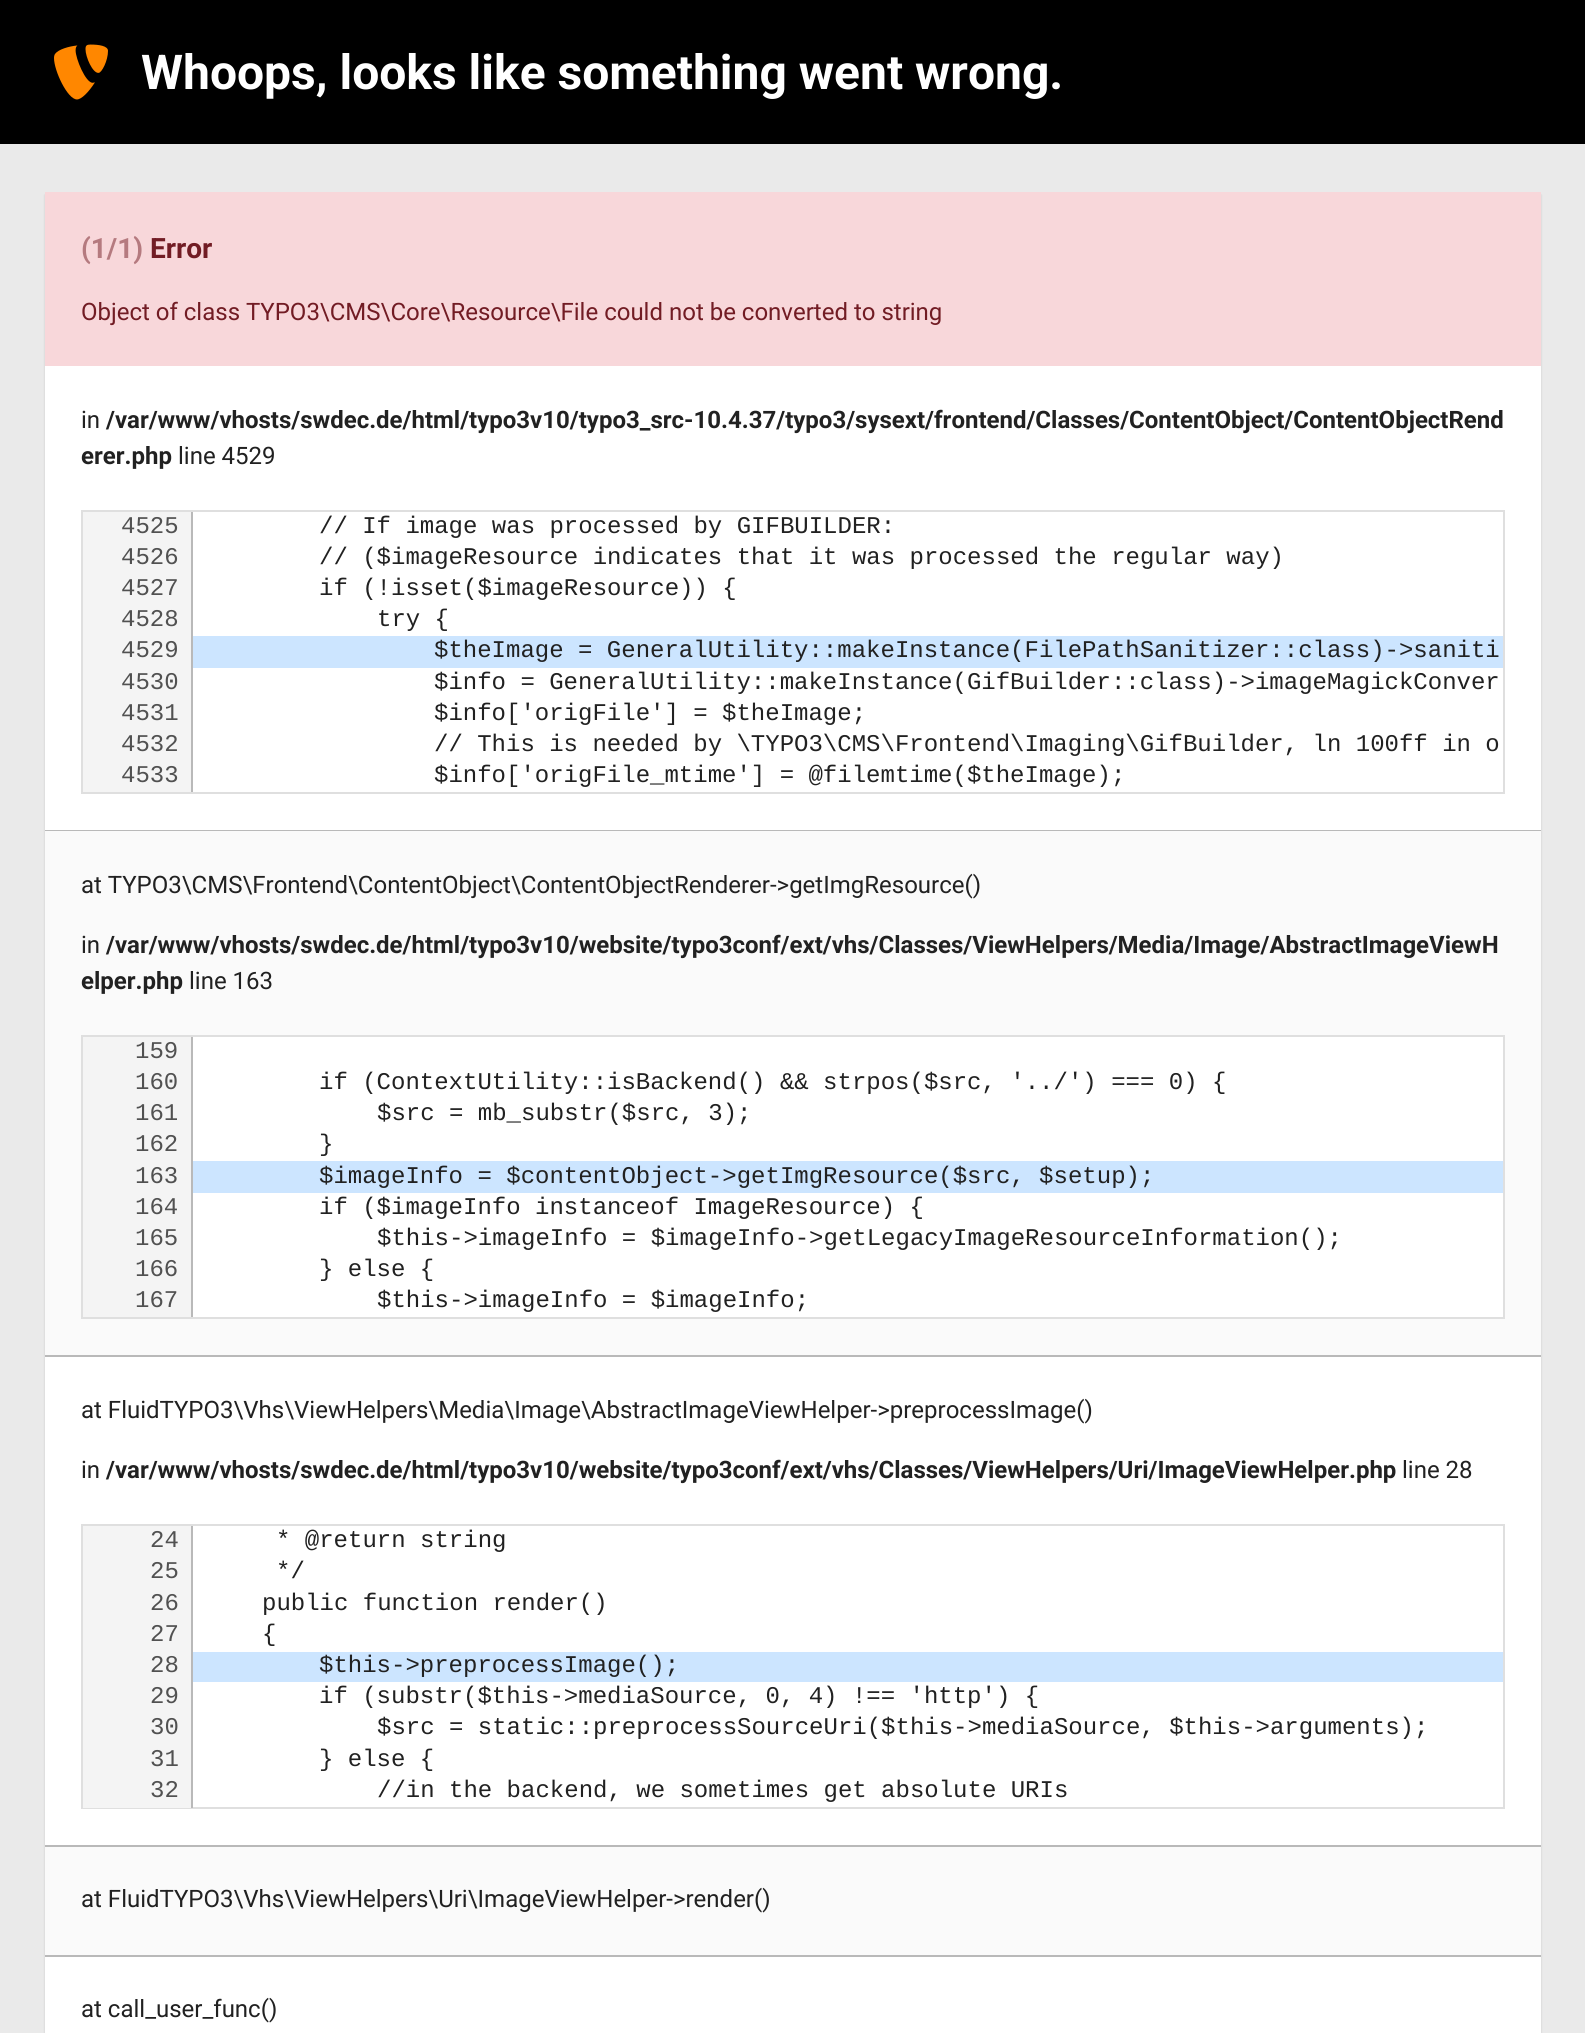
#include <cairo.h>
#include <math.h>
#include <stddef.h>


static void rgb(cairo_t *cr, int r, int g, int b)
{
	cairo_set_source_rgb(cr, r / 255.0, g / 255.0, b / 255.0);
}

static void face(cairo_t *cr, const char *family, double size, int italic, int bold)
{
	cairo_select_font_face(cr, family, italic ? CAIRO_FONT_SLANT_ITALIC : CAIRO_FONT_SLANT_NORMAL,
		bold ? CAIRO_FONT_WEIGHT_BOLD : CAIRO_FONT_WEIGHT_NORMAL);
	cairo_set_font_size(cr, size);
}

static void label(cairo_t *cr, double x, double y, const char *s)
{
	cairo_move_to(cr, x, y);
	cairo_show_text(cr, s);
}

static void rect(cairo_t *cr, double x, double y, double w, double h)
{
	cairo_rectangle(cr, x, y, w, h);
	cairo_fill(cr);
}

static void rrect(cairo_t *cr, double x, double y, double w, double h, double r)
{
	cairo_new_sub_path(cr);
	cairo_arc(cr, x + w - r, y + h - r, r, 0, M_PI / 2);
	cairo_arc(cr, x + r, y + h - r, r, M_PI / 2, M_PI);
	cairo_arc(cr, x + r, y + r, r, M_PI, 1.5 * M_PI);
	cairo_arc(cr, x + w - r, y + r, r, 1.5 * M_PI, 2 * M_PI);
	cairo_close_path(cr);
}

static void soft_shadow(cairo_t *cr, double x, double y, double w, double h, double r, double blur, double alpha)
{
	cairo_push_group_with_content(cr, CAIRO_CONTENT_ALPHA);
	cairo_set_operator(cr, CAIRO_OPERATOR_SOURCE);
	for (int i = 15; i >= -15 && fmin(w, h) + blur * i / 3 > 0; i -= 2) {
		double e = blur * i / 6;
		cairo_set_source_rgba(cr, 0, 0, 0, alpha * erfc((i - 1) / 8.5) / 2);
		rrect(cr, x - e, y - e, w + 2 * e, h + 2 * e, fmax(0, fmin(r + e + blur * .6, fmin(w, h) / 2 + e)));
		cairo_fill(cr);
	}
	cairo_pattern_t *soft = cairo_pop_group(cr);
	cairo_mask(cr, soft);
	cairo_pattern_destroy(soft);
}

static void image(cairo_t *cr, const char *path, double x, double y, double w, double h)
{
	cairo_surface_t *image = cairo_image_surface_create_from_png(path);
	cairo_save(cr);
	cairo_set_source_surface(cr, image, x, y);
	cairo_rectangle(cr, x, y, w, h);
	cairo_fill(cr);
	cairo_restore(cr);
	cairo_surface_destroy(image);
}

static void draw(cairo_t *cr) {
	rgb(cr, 234, 234, 234);
	cairo_paint(cr);
	rgb(cr, 0, 0, 0);
	rect(cr, 0, 0, 1585, 144);
	image(cr, "image0.png", 54, 44, 54, 56);
	face(cr, "Roboto", 48, 0, 1);
	rgb(cr, 255, 255, 255);
	label(cr, 141, 89, "Whoops, looks like something went wrong.");
	rgb(cr, 0, 0, 0);
	soft_shadow(cr, 45, 195, 1496, 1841, 0, 1, 0.15);
	rgb(cr, 255, 255, 255);
	rect(cr, 45, 366, 1496, 1667);
	rgb(cr, 248, 215, 218);
	rect(cr, 45, 192, 1496, 174);
	face(cr, "Roboto", 28, 0, 1);
	rgb(cr, 181, 122, 127);
	label(cr, 81, 258, "(1/1)");
	rgb(cr, 114, 28, 36);
	label(cr, 150, 258, "Error");
	face(cr, "Roboto", 24, 0, 0);
	label(cr, 81, 320, "Object of class TYPO3\\CMS\\Core\\Resource\\File could not be converted to string");
	rgb(cr, 185, 185, 185);
	rect(cr, 45, 830, 1496, 1);
	rgb(cr, 33, 33, 33);
	label(cr, 81, 428, "in");
	face(cr, "Roboto", 24, 0, 1);
	label(cr, 106, 428, "/var/www/vhosts/swdec.de/html/typo3v10/typo3_src-10.4.37/typo3/sysext/frontend/Classes/ContentObject/ContentObjectRend");
	label(cr, 81, 464, "erer.php");
	face(cr, "Roboto", 24, 0, 0);
	label(cr, 178, 464, "line 4529");
	cairo_rectangle(cr, 82, 511, 1422, 282);
	rgb(cr, 223, 223, 223);
	cairo_stroke(cr);
	rgb(cr, 244, 244, 244);
	rect(cr, 83, 512, 108, 280);
	rgb(cr, 185, 185, 185);
	rect(cr, 191, 512, 2, 280);
	face(cr, "Liberation Mono", 24, 0, 0);
	rgb(cr, 81, 81, 81);
	label(cr, 121, 533, "4525");
	rgb(cr, 33, 33, 33);
	label(cr, 319, 533, "// If image was processed by GIFBUILDER:");
	rgb(cr, 81, 81, 81);
	label(cr, 121, 564, "4526");
	rgb(cr, 33, 33, 33);
	label(cr, 319, 564, "// ($imageResource indicates that it was processed the regular way)");
	rgb(cr, 81, 81, 81);
	label(cr, 121, 595, "4527");
	rgb(cr, 33, 33, 33);
	label(cr, 319, 595, "if (!isset($imageResource)) {");
	rgb(cr, 81, 81, 81);
	label(cr, 121, 626, "4528");
	rgb(cr, 33, 33, 33);
	label(cr, 377, 626, "try {");
	rgb(cr, 204, 229, 255);
	rect(cr, 193, 636, 1310, 32);
	rgb(cr, 81, 81, 81);
	label(cr, 121, 657, "4529");
	rgb(cr, 33, 33, 33);
	label(cr, 434, 657, "$theImage = GeneralUtility::makeInstance(FilePathSanitizer::class)->saniti");
	rgb(cr, 81, 81, 81);
	label(cr, 121, 689, "4530");
	rgb(cr, 33, 33, 33);
	label(cr, 434, 689, "$info = GeneralUtility::makeInstance(GifBuilder::class)->imageMagickConver");
	rgb(cr, 81, 81, 81);
	label(cr, 121, 720, "4531");
	rgb(cr, 33, 33, 33);
	label(cr, 434, 720, "$info['origFile'] = $theImage;");
	rgb(cr, 81, 81, 81);
	label(cr, 121, 751, "4532");
	rgb(cr, 33, 33, 33);
	label(cr, 434, 751, "// This is needed by \\TYPO3\\CMS\\Frontend\\Imaging\\GifBuilder, ln 100ff in o");
	rgb(cr, 81, 81, 81);
	label(cr, 121, 782, "4533");
	rgb(cr, 33, 33, 33);
	label(cr, 434, 782, "$info['origFile_mtime'] = @filemtime($theImage);");
	rgb(cr, 250, 250, 250);
	rect(cr, 45, 831, 1496, 524);
	rgb(cr, 185, 185, 185);
	rect(cr, 45, 1355, 1496, 2);
	face(cr, "Roboto", 24, 0, 0);
	rgb(cr, 33, 33, 33);
	label(cr, 81, 893, "at TYPO3\\CMS\\Frontend\\ContentObject\\ContentObjectRenderer->getImgResource()");
	label(cr, 81, 953, "in");
	face(cr, "Roboto", 24, 0, 1);
	label(cr, 106, 953, "/var/www/vhosts/swdec.de/html/typo3v10/website/typo3conf/ext/vhs/Classes/ViewHelpers/Media/Image/AbstractImageViewH");
	label(cr, 81, 989, "elper.php");
	face(cr, "Roboto", 24, 0, 0);
	label(cr, 189, 989, "line 163");
	rgb(cr, 255, 255, 255);
	rect(cr, 193, 1037, 1310, 280);
	cairo_rectangle(cr, 82, 1036, 1422, 282);
	rgb(cr, 223, 223, 223);
	cairo_stroke(cr);
	rgb(cr, 244, 244, 244);
	rect(cr, 83, 1037, 108, 280);
	rgb(cr, 185, 185, 185);
	rect(cr, 191, 1037, 2, 280);
	face(cr, "Liberation Mono", 24, 0, 0);
	rgb(cr, 81, 81, 81);
	label(cr, 135, 1058, "159");
	label(cr, 135, 1089, "160");
	rgb(cr, 33, 33, 33);
	label(cr, 319, 1089, "if (ContextUtility::isBackend() && strpos($src, '../') === 0) {");
	rgb(cr, 81, 81, 81);
	label(cr, 135, 1120, "161");
	rgb(cr, 33, 33, 33);
	label(cr, 377, 1120, "$src = mb_substr($src, 3);");
	rgb(cr, 81, 81, 81);
	label(cr, 135, 1151, "162");
	rgb(cr, 33, 33, 33);
	label(cr, 319, 1151, "}");
	rgb(cr, 204, 229, 255);
	rect(cr, 193, 1161, 1310, 32);
	rgb(cr, 81, 81, 81);
	label(cr, 135, 1183, "163");
	rgb(cr, 33, 33, 33);
	label(cr, 319, 1183, "$imageInfo = $contentObject->getImgResource($src, $setup);");
	rgb(cr, 81, 81, 81);
	label(cr, 135, 1214, "164");
	rgb(cr, 33, 33, 33);
	label(cr, 319, 1214, "if ($imageInfo instanceof ImageResource) {");
	rgb(cr, 81, 81, 81);
	label(cr, 135, 1245, "165");
	rgb(cr, 33, 33, 33);
	label(cr, 377, 1245, "$this->imageInfo = $imageInfo->getLegacyImageResourceInformation();");
	rgb(cr, 81, 81, 81);
	label(cr, 135, 1276, "166");
	rgb(cr, 33, 33, 33);
	label(cr, 319, 1276, "} else {");
	rgb(cr, 81, 81, 81);
	label(cr, 135, 1307, "167");
	rgb(cr, 33, 33, 33);
	label(cr, 377, 1307, "$this->imageInfo = $imageInfo;");
	rgb(cr, 185, 185, 185);
	rect(cr, 45, 1845, 1496, 2);
	face(cr, "Roboto", 24, 0, 0);
	rgb(cr, 33, 33, 33);
	label(cr, 81, 1418, "at FluidTYPO3\\Vhs\\ViewHelpers\\Media\\Image\\AbstractImageViewHelper->preprocessImage()");
	label(cr, 81, 1478, "in");
	face(cr, "Roboto", 24, 0, 1);
	label(cr, 106, 1478, "/var/www/vhosts/swdec.de/html/typo3v10/website/typo3conf/ext/vhs/Classes/ViewHelpers/Uri/ImageViewHelper.php");
	face(cr, "Roboto", 24, 0, 0);
	label(cr, 1402, 1478, "line 28");
	cairo_rectangle(cr, 82, 1525, 1422, 283);
	rgb(cr, 223, 223, 223);
	cairo_stroke(cr);
	rgb(cr, 244, 244, 244);
	rect(cr, 83, 1526, 108, 282);
	rgb(cr, 185, 185, 185);
	rect(cr, 191, 1526, 2, 282);
	face(cr, "Liberation Mono", 24, 0, 0);
	rgb(cr, 81, 81, 81);
	label(cr, 150, 1547, "24");
	rgb(cr, 33, 33, 33);
	label(cr, 276, 1547, "* @return string");
	rgb(cr, 81, 81, 81);
	label(cr, 150, 1578, "25");
	rgb(cr, 33, 33, 33);
	label(cr, 276, 1578, "*/");
	rgb(cr, 81, 81, 81);
	label(cr, 150, 1610, "26");
	rgb(cr, 33, 33, 33);
	label(cr, 262, 1610, "public function render()");
	rgb(cr, 81, 81, 81);
	label(cr, 150, 1641, "27");
	rgb(cr, 33, 33, 33);
	label(cr, 262, 1641, "{");
	rgb(cr, 204, 229, 255);
	rect(cr, 193, 1652, 1310, 30);
	rgb(cr, 81, 81, 81);
	label(cr, 150, 1672, "28");
	rgb(cr, 33, 33, 33);
	label(cr, 319, 1672, "$this->preprocessImage();");
	rgb(cr, 81, 81, 81);
	label(cr, 150, 1703, "29");
	rgb(cr, 33, 33, 33);
	label(cr, 319, 1703, "if (substr($this->mediaSource, 0, 4) !== 'http') {");
	rgb(cr, 81, 81, 81);
	label(cr, 150, 1734, "30");
	rgb(cr, 33, 33, 33);
	label(cr, 377, 1734, "$src = static::preprocessSourceUri($this->mediaSource, $this->arguments);");
	rgb(cr, 81, 81, 81);
	label(cr, 150, 1766, "31");
	rgb(cr, 33, 33, 33);
	label(cr, 319, 1766, "} else {");
	rgb(cr, 81, 81, 81);
	label(cr, 150, 1797, "32");
	rgb(cr, 33, 33, 33);
	label(cr, 377, 1797, "//in the backend, we sometimes get absolute URIs");
	rgb(cr, 250, 250, 250);
	rect(cr, 45, 1847, 1496, 108);
	rgb(cr, 185, 185, 185);
	rect(cr, 45, 1955, 1496, 2);
	face(cr, "Roboto", 24, 0, 0);
	rgb(cr, 33, 33, 33);
	label(cr, 81, 1907, "at FluidTYPO3\\Vhs\\ViewHelpers\\Uri\\ImageViewHelper->render()");
	label(cr, 81, 2017, "at call_user_func()");
}

int main(void) {
	cairo_surface_t *surface = cairo_image_surface_create(CAIRO_FORMAT_RGB24, 1585, 2033);
	cairo_t *cr = cairo_create(surface);
	cairo_font_options_t *options = cairo_font_options_create();
	cairo_font_options_set_hint_metrics(options, CAIRO_HINT_METRICS_OFF);
	cairo_font_options_set_hint_style(options, CAIRO_HINT_STYLE_NONE);
	cairo_set_font_options(cr, options);
	cairo_set_miter_limit(cr, 4);
	draw(cr);
	cairo_surface_write_to_png(surface, "render.png");
	cairo_font_options_destroy(options);
	cairo_destroy(cr);
	cairo_surface_destroy(surface);
	return 0;
}
